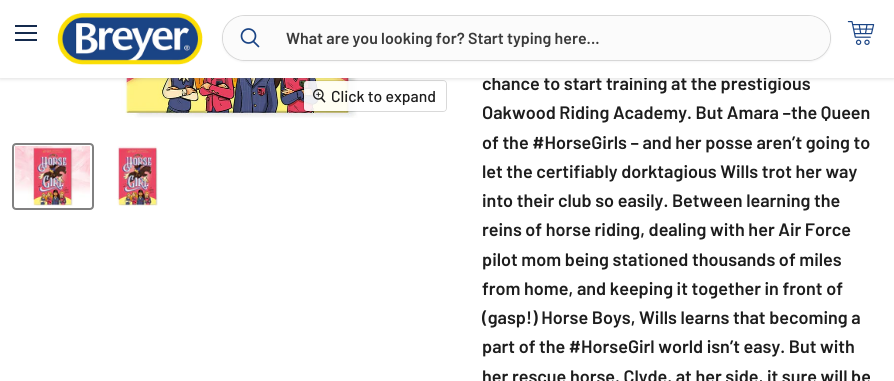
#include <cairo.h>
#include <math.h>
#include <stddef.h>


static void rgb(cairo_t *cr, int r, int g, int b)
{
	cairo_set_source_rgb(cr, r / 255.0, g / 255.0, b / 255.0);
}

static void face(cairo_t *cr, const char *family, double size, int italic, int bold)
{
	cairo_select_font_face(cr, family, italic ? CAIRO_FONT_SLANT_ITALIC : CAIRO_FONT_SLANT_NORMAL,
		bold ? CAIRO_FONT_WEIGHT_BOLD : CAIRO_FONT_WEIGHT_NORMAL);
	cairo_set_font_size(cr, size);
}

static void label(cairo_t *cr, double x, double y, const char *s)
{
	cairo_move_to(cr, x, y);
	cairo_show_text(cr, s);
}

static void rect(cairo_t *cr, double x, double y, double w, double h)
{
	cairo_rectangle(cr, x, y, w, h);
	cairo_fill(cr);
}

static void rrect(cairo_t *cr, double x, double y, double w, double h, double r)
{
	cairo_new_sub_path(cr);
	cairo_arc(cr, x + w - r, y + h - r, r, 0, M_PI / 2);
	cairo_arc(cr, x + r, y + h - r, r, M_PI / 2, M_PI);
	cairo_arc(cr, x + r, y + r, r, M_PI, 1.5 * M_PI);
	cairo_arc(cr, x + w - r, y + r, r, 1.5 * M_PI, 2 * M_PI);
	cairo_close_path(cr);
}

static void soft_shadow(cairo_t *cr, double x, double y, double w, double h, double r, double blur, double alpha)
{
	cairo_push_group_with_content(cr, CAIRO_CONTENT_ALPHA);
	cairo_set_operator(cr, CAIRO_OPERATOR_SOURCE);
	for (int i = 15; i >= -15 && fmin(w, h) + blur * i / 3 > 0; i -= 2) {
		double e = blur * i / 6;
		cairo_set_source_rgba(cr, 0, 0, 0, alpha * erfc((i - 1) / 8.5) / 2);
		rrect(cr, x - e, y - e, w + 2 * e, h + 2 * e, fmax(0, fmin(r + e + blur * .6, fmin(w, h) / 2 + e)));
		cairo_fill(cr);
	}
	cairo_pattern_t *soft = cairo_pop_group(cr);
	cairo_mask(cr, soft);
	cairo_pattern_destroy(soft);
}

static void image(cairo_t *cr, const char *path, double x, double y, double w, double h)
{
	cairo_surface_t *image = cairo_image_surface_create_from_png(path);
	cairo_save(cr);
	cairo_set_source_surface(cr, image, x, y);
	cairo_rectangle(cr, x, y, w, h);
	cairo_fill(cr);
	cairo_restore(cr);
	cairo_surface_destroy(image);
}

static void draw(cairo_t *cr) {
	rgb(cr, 255, 255, 255);
	cairo_paint(cr);
	image(cr, "image2.png", 15, 78, 445, 40);
	rrect(cr, 303.5, 80.5, 143, 31, 3.5);
	cairo_set_source_rgba(cr, 0, 0, 0, 0.15);
	cairo_set_line_width(cr, 1);
	cairo_stroke(cr);
	cairo_set_source_rgba(cr, 1, 1, 1, 0.9);
	rrect(cr, 304, 81, 142, 30, 3);
	cairo_fill(cr);
	rgb(cr, 128, 128, 128);
	soft_shadow(cr, 0, 1, 894, 78, 0, 2, 0.25);
	face(cr, "Barlow SemiBold", 18, 0, 0);
	rgb(cr, 29, 29, 29);
	label(cr, 482, 90, "chance to start training at the prestigious");
	rgb(cr, 255, 255, 255);
	rect(cr, 0, 0, 894, 78);
	rgb(cr, 20, 42, 77);
	rect(cr, 15, 25, 22, 2);
	rect(cr, 15, 32, 22, 2);
	rect(cr, 15, 39, 22, 2);
	image(cr, "image0.png", 57, 13, 146, 52);
	rgb(cr, 10, 13, 18);
	soft_shadow(cr, 222, 16, 609, 46, 23, 1, 0.05);
	rgb(cr, 251, 251, 251);
	rrect(cr, 222.5, 15.5, 608, 45, 22.5);
	cairo_fill_preserve(cr);
	rgb(cr, 215, 215, 215);
	cairo_stroke(cr);
	rgb(cr, 251, 251, 251);
	cairo_new_path(cr);
	cairo_move_to(cr, 279, 16);
	cairo_line_to(cr, 808, 16);
	cairo_curve_to(cr, 820, 16, 830, 26, 830, 38);
	cairo_curve_to(cr, 830, 50, 820, 60, 808, 60);
	cairo_line_to(cr, 279, 60);
	cairo_curve_to(cr, 277.5, 60, 276, 58.5, 276, 57);
	cairo_line_to(cr, 276, 19);
	cairo_curve_to(cr, 276, 17.5, 277.5, 16, 279, 16);
	cairo_close_path(cr);
	cairo_fill(cr);
	cairo_new_path(cr);
	cairo_move_to(cr, 245, 16);
	cairo_line_to(cr, 277, 16);
	cairo_line_to(cr, 277, 60);
	cairo_line_to(cr, 245, 60);
	cairo_curve_to(cr, 233, 60, 223, 50, 223, 38);
	cairo_curve_to(cr, 223, 26, 233, 16, 245, 16);
	cairo_close_path(cr);
	cairo_fill(cr);
	cairo_new_path(cr);
	cairo_move_to(cr, 258.5, 46.5);
	cairo_line_to(cr, 253.5, 41.5);
	rgb(cr, 26, 68, 133);
	cairo_set_line_width(cr, 1.7);
	cairo_set_line_cap(cr, CAIRO_LINE_CAP_ROUND);
	cairo_stroke(cr);
	cairo_arc(cr, 248.5, 36, 7, 0, 2 * M_PI);
	cairo_set_line_cap(cr, CAIRO_LINE_CAP_BUTT);
	cairo_stroke(cr);
	cairo_save(cr);
	cairo_rectangle(cr, 286, 28, 534, 19);
	cairo_clip(cr);
	face(cr, "Barlow SemiBold", 16, 0, 0);
	rgb(cr, 58, 58, 58);
	label(cr, 286, 44, "What are you looking for? Start typing here...");
	cairo_restore(cr);
	image(cr, "image1.png", 847, 21, 28, 24);
	image(cr, "image3.png", 313, 89, 13, 14);
	face(cr, "Barlow Medium", 15.75, 0, 0);
	rgb(cr, 29, 29, 29);
	label(cr, 331, 102, "Click to expand");
	rrect(cr, 13, 144, 80, 65, 3);
	rgb(cr, 129, 129, 129);
	cairo_set_line_width(cr, 2);
	cairo_stroke(cr);
	image(cr, "image4.png", 15, 146, 75, 60);
	image(cr, "image5.png", 117, 146, 41, 60);
	face(cr, "Barlow SemiBold", 18, 0, 0);
	rgb(cr, 29, 29, 29);
	label(cr, 482, 119, "Oakwood Riding Academy. But Amara –the Queen");
	label(cr, 482, 149, "of the #HorseGirls – and her posse aren’t going to");
	label(cr, 482, 178, "let the certifiably dorktagious Wills trot her way");
	label(cr, 482, 207, "into their club so easily. Between learning the");
	label(cr, 482, 236, "reins of horse riding, dealing with her Air Force");
	label(cr, 482, 266, "pilot mom being stationed thousands of miles");
	label(cr, 482, 295, "from home, and keeping it together in front of");
	label(cr, 482, 324, "(gasp!) Horse Boys, Wills learns that becoming a");
	label(cr, 482, 353, "part of the #HorseGirl world isn’t easy. But with");
	label(cr, 482, 383, "her rescue horse, Clyde, at her side, it sure will be");
	cairo_new_path(cr);
	cairo_move_to(cr, 852, 354);
	cairo_line_to(cr, 847.5, 359);
	cairo_move_to(cr, 852, 354);
	cairo_line_to(cr, 856.5, 359);
	rgb(cr, 255, 255, 255);
	cairo_set_line_width(cr, 1.9);
	cairo_set_line_cap(cr, CAIRO_LINE_CAP_SQUARE);
	cairo_stroke(cr);
}

int main(void) {
	cairo_surface_t *surface = cairo_image_surface_create(CAIRO_FORMAT_RGB24, 894, 381);
	cairo_t *cr = cairo_create(surface);
	cairo_font_options_t *options = cairo_font_options_create();
	cairo_font_options_set_hint_metrics(options, CAIRO_HINT_METRICS_OFF);
	cairo_font_options_set_hint_style(options, CAIRO_HINT_STYLE_NONE);
	cairo_set_font_options(cr, options);
	cairo_set_miter_limit(cr, 4);
	draw(cr);
	cairo_surface_write_to_png(surface, "render.png");
	cairo_font_options_destroy(options);
	cairo_destroy(cr);
	cairo_surface_destroy(surface);
	return 0;
}
